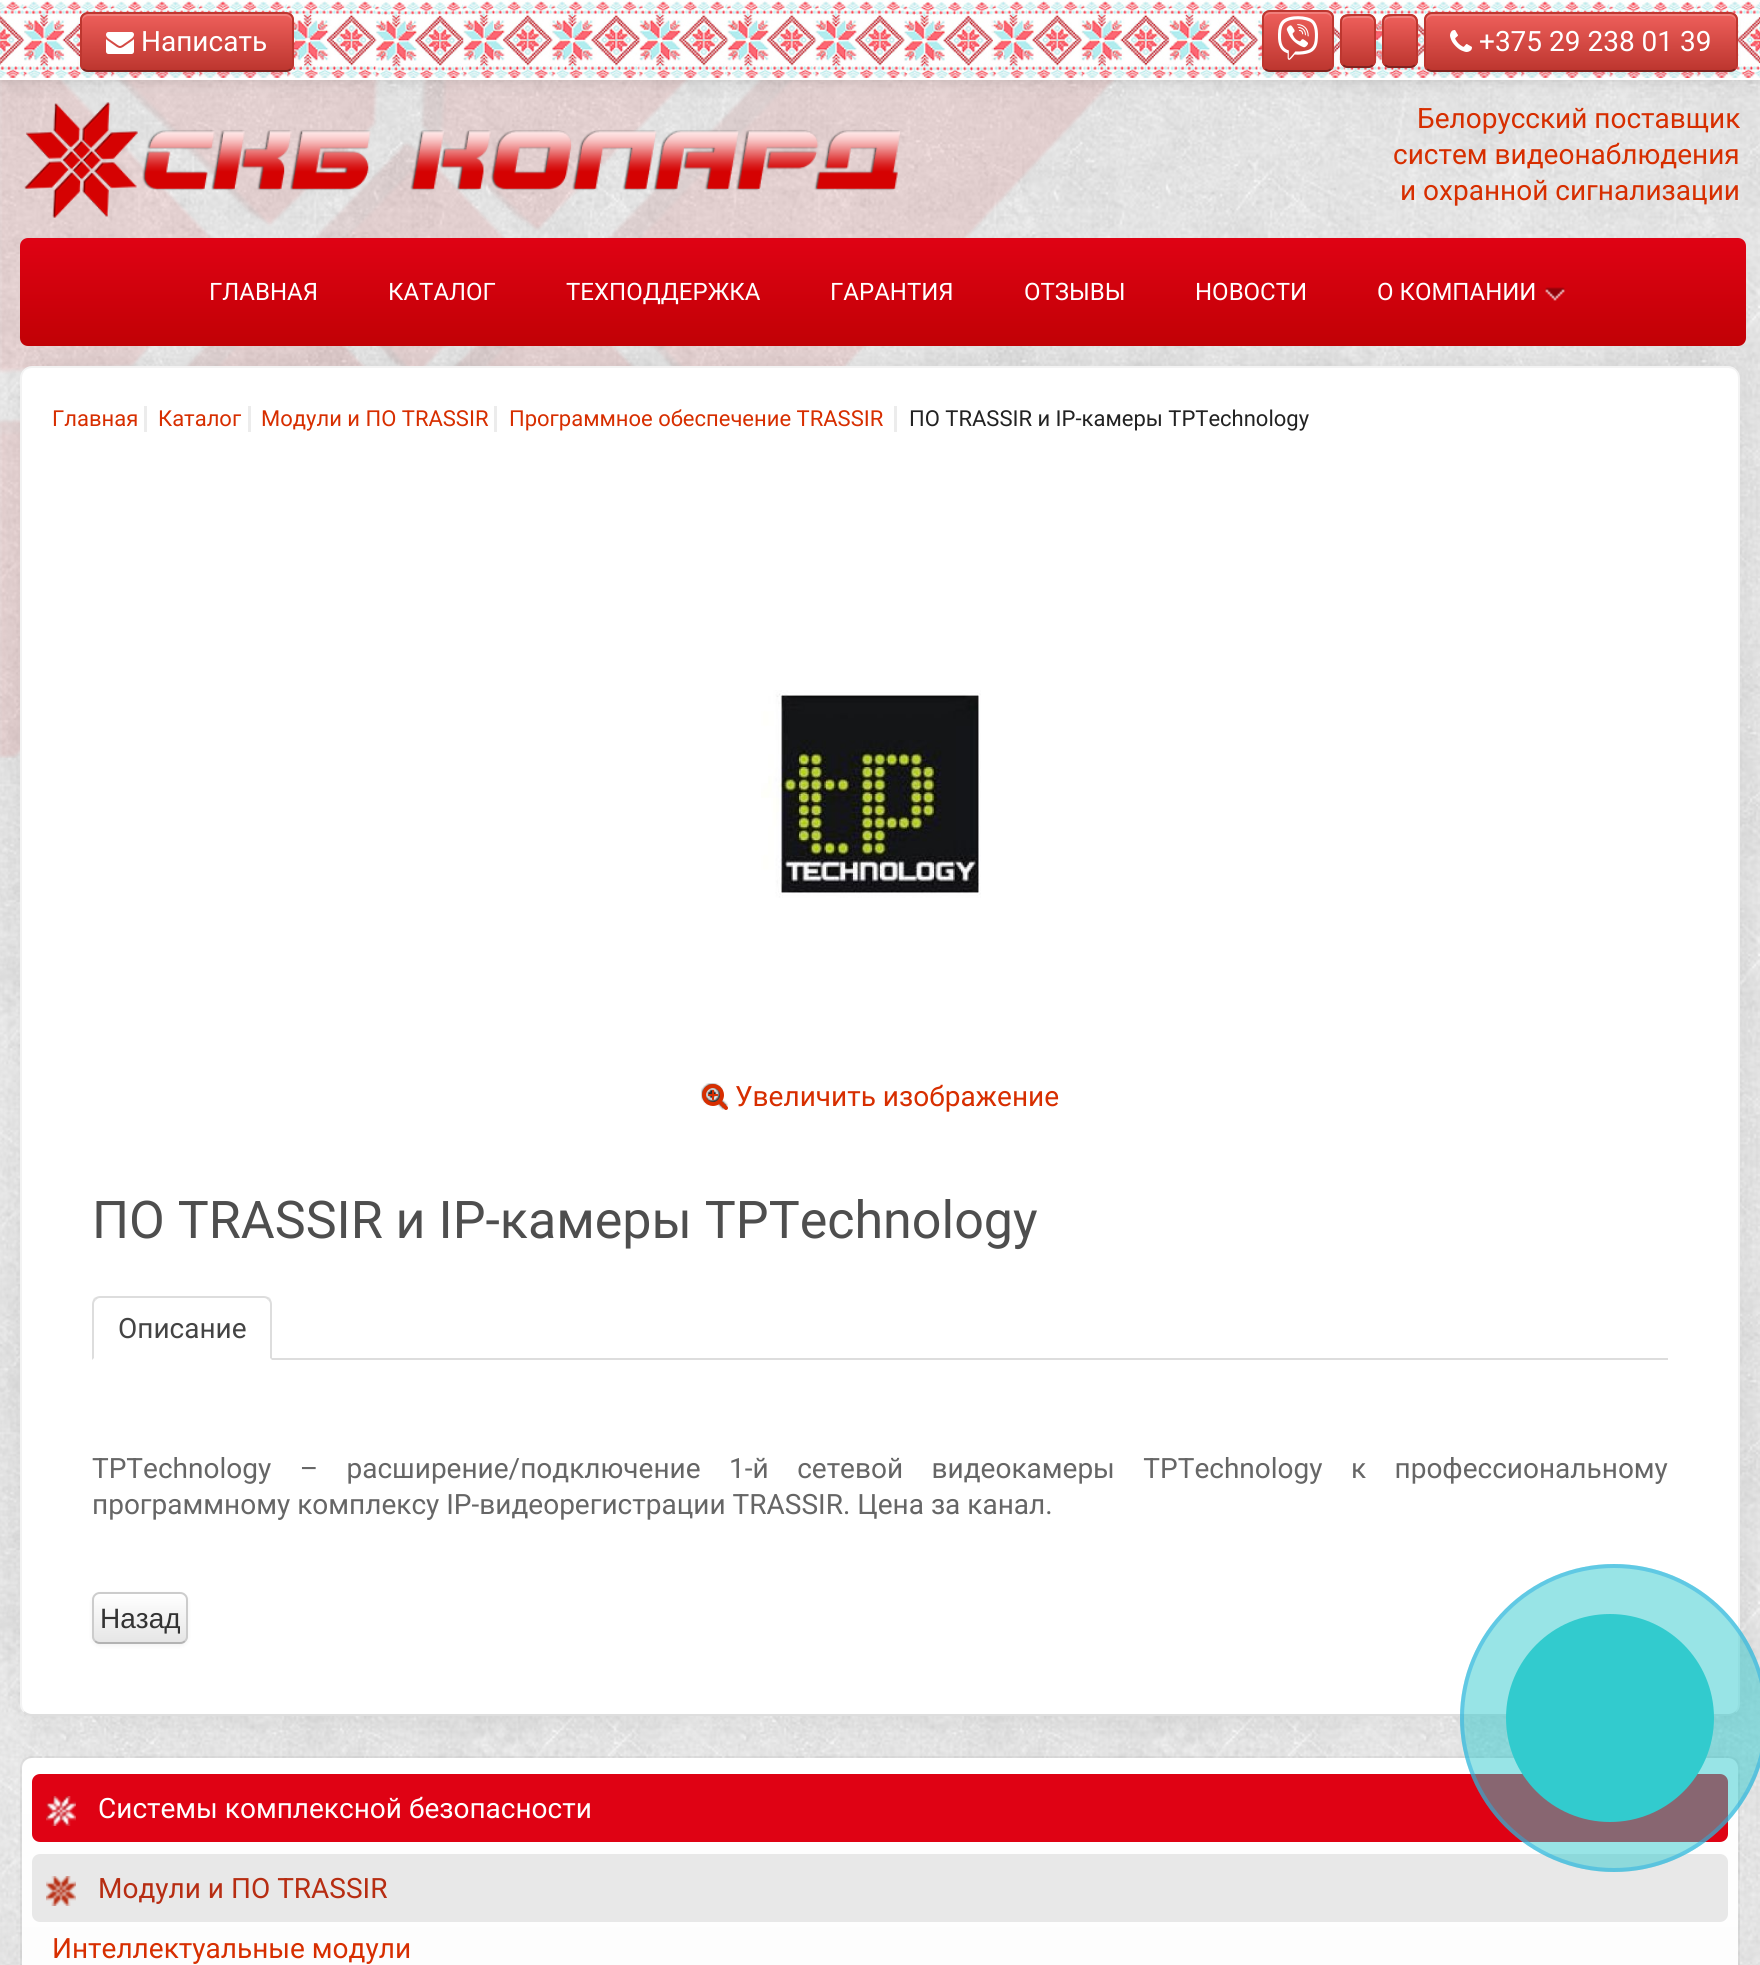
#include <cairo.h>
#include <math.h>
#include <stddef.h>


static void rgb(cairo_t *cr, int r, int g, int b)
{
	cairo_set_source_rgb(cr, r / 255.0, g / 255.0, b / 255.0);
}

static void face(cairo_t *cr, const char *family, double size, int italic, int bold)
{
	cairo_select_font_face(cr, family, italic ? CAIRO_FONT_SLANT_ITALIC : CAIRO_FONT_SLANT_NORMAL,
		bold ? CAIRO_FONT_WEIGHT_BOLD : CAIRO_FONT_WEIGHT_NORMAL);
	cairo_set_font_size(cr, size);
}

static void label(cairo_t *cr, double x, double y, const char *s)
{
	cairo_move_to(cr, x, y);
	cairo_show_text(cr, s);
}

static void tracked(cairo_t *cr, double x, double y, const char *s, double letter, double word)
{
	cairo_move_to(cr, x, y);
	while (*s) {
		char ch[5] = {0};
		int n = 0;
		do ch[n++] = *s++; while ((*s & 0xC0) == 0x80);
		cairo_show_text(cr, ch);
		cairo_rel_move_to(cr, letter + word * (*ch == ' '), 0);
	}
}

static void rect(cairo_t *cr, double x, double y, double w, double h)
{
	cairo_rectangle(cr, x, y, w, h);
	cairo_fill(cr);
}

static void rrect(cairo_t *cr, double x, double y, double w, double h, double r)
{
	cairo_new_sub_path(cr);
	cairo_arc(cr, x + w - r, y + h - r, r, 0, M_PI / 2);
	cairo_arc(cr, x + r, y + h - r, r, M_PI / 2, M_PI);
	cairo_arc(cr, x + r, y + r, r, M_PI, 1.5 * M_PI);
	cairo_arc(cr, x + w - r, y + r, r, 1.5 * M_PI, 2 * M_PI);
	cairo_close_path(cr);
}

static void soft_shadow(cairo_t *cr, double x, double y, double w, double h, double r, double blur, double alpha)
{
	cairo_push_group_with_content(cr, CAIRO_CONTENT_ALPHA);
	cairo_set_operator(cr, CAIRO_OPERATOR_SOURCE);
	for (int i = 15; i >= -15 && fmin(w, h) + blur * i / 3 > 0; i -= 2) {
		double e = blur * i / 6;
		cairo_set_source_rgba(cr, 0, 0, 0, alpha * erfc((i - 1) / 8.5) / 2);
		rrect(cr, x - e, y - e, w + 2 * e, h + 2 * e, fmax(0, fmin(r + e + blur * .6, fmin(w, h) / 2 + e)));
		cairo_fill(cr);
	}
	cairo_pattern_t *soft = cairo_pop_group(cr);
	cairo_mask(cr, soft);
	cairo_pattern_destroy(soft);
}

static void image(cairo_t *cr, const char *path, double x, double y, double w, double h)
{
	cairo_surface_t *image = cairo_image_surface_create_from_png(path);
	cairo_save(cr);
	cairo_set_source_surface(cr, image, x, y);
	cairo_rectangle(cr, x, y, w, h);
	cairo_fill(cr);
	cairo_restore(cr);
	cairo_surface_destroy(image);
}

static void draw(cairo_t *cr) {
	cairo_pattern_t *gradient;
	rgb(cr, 255, 255, 255);
	cairo_paint(cr);
	image(cr, "image0.png", 0, 80, 1760, 1885);
	image(cr, "image1.png", 0, 80, 1114, 678);
	rgb(cr, 0, 0, 0);
	soft_shadow(cr, 0, 6, 1760, 80, 0, 8, 0.05);
	soft_shadow(cr, 0, 2, 1760, 80, 0, 3, 0.06);
	image(cr, "image2.png", 0, 0, 1760, 78);
	rgb(cr, 255, 255, 255);
	rect(cr, 0, 78, 1760, 2);
	rgb(cr, 0, 0, 0);
	soft_shadow(cr, 80, 14, 214, 60, 8, 2, 0.05);
	cairo_save(cr);
	rrect(cr, 80, 12, 214, 60, 8);
	cairo_clip(cr);
	gradient = cairo_pattern_create_linear(187, 14, 187, 70);
	cairo_pattern_add_color_stop_rgba(gradient, 0, 0.933, 0.373, 0.357, 1);
	cairo_pattern_add_color_stop_rgba(gradient, 1, 0.741, 0.212, 0.184, 1);
	cairo_set_source(cr, gradient);
	cairo_pattern_destroy(gradient);
	rect(cr, 80, 14, 214, 56);
	cairo_restore(cr);
	cairo_set_source_rgba(cr, 1, 1, 1, 0.2);
	cairo_new_path(cr);
	cairo_move_to(cr, 88, 16);
	cairo_line_to(cr, 286, 16);
	cairo_curve_to(cr, 289, 16, 292, 19, 292, 22);
	cairo_line_to(cr, 292, 20);
	cairo_curve_to(cr, 292, 17, 289, 14, 286, 14);
	cairo_line_to(cr, 88, 14);
	cairo_curve_to(cr, 85, 14, 82, 17, 82, 20);
	cairo_line_to(cr, 82, 22);
	cairo_curve_to(cr, 82, 19, 85, 16, 88, 16);
	cairo_close_path(cr);
	cairo_fill(cr);
	cairo_new_path(cr);
	cairo_move_to(cr, 291, 69);
	cairo_curve_to(cr, 289.5, 70.5, 288, 71, 286, 71);
	cairo_line_to(cr, 88, 71);
	cairo_curve_to(cr, 86, 71, 84.5, 70.5, 83, 69);
	rgb(cr, 128, 36, 32);
	cairo_stroke(cr);
	cairo_new_path(cr);
	cairo_move_to(cr, 83, 69);
	cairo_curve_to(cr, 81.5, 67.5, 81, 66, 81, 64);
	cairo_line_to(cr, 81, 20);
	cairo_curve_to(cr, 81, 18, 81.5, 16.5, 83, 15);
	cairo_curve_to(cr, 84.5, 13.5, 86, 13, 88, 13);
	cairo_line_to(cr, 286, 13);
	cairo_curve_to(cr, 288, 13, 289.5, 13.5, 291, 15);
	cairo_curve_to(cr, 292.5, 16.5, 293, 18, 293, 20);
	cairo_line_to(cr, 293, 64);
	cairo_curve_to(cr, 293, 66, 292.5, 67.5, 291, 69);
	rgb(cr, 189, 54, 47);
	cairo_stroke(cr);
	image(cr, "image3.png", 106, 32, 28, 22);
	face(cr, "Roboto", 28, 0, 0);
	rgb(cr, 255, 255, 255);
	label(cr, 141, 51, "Написать");
	rgb(cr, 0, 0, 0);
	soft_shadow(cr, 1262, 12, 72, 62, 8, 2, 0.05);
	cairo_save(cr);
	rrect(cr, 1262, 10, 72, 62, 8);
	cairo_clip(cr);
	gradient = cairo_pattern_create_linear(1298, 12, 1298, 70);
	cairo_pattern_add_color_stop_rgba(gradient, 0, 0.933, 0.373, 0.357, 1);
	cairo_pattern_add_color_stop_rgba(gradient, 1, 0.741, 0.212, 0.184, 1);
	cairo_set_source(cr, gradient);
	cairo_pattern_destroy(gradient);
	rect(cr, 1262, 12, 72, 58);
	cairo_restore(cr);
	cairo_set_source_rgba(cr, 1, 1, 1, 0.2);
	cairo_new_path(cr);
	cairo_move_to(cr, 1270, 14);
	cairo_line_to(cr, 1326, 14);
	cairo_curve_to(cr, 1329, 14, 1332, 17, 1332, 20);
	cairo_curve_to(cr, 1332, 10, 1325, 12, 1317, 12);
	cairo_line_to(cr, 1279, 12);
	cairo_curve_to(cr, 1271, 12, 1264, 10, 1264, 20);
	cairo_curve_to(cr, 1264, 17, 1267, 14, 1270, 14);
	cairo_close_path(cr);
	cairo_fill(cr);
	cairo_new_path(cr);
	cairo_move_to(cr, 1331, 69);
	cairo_curve_to(cr, 1329.5, 70.5, 1328, 71, 1326, 71);
	cairo_line_to(cr, 1270, 71);
	cairo_curve_to(cr, 1268, 71, 1266.5, 70.5, 1265, 69);
	rgb(cr, 128, 36, 32);
	cairo_stroke(cr);
	cairo_new_path(cr);
	cairo_move_to(cr, 1265, 69);
	cairo_curve_to(cr, 1263.5, 67.5, 1263, 66, 1263, 64);
	cairo_line_to(cr, 1263, 18);
	cairo_curve_to(cr, 1263, 16, 1263.5, 14.5, 1265, 13);
	cairo_curve_to(cr, 1266.5, 11.5, 1268, 11, 1270, 11);
	cairo_line_to(cr, 1326, 11);
	cairo_curve_to(cr, 1328, 11, 1329.5, 11.5, 1331, 13);
	cairo_curve_to(cr, 1332.5, 14.5, 1333, 16, 1333, 18);
	cairo_line_to(cr, 1333, 64);
	cairo_curve_to(cr, 1333, 66, 1332.5, 67.5, 1331, 69);
	rgb(cr, 189, 54, 47);
	cairo_stroke(cr);
	image(cr, "image4.png", 1278, 16, 40, 44);
	rgb(cr, 0, 0, 0);
	soft_shadow(cr, 1340, 16, 36, 54, 8, 2, 0.05);
	rgb(cr, 218, 79, 73);
	rrect(cr, 1340, 14, 36, 54, 8);
	cairo_fill(cr);
	cairo_save(cr);
	rrect(cr, 1340, 14, 36, 54, 8);
	cairo_clip(cr);
	gradient = cairo_pattern_create_linear(1358, 16, 1358, 66);
	cairo_pattern_add_color_stop_rgba(gradient, 0, 0.933, 0.373, 0.357, 1);
	cairo_pattern_add_color_stop_rgba(gradient, 1, 0.741, 0.212, 0.184, 1);
	cairo_set_source(cr, gradient);
	cairo_pattern_destroy(gradient);
	rect(cr, 1340, 16, 36, 50);
	cairo_restore(cr);
	cairo_set_source_rgba(cr, 1, 1, 1, 0.2);
	cairo_new_path(cr);
	cairo_move_to(cr, 1348, 18);
	cairo_line_to(cr, 1368, 18);
	cairo_curve_to(cr, 1371, 18, 1374, 21, 1374, 24);
	cairo_curve_to(cr, 1374, 17, 1371.5, 16, 1364.5, 16);
	cairo_line_to(cr, 1351.5, 16);
	cairo_curve_to(cr, 1344.5, 16, 1342, 17, 1342, 24);
	cairo_curve_to(cr, 1342, 21, 1345, 18, 1348, 18);
	cairo_close_path(cr);
	cairo_fill(cr);
	cairo_new_path(cr);
	cairo_move_to(cr, 1373, 65);
	cairo_curve_to(cr, 1371.5, 66.5, 1370, 67, 1368, 67);
	cairo_line_to(cr, 1348, 67);
	cairo_curve_to(cr, 1346, 67, 1344.5, 66.5, 1343, 65);
	rgb(cr, 128, 36, 32);
	cairo_stroke(cr);
	cairo_new_path(cr);
	cairo_move_to(cr, 1343, 65);
	cairo_curve_to(cr, 1340, 62, 1341, 57.5, 1341, 53.5);
	cairo_line_to(cr, 1341, 34.5);
	cairo_curve_to(cr, 1341, 15.5, 1339, 15, 1358, 15);
	cairo_line_to(cr, 1369.5, 15);
	cairo_curve_to(cr, 1376, 16.5, 1375, 23.5, 1375, 28.5);
	cairo_line_to(cr, 1375, 53.5);
	cairo_curve_to(cr, 1375, 57.5, 1376, 62, 1373, 65);
	rgb(cr, 189, 54, 47);
	cairo_stroke(cr);
	rgb(cr, 0, 0, 0);
	soft_shadow(cr, 1382, 16, 36, 54, 8, 2, 0.05);
	rgb(cr, 218, 79, 73);
	rrect(cr, 1382, 14, 36, 54, 8);
	cairo_fill(cr);
	cairo_save(cr);
	rrect(cr, 1382, 14, 36, 54, 8);
	cairo_clip(cr);
	gradient = cairo_pattern_create_linear(1400, 16, 1400, 66);
	cairo_pattern_add_color_stop_rgba(gradient, 0, 0.933, 0.373, 0.357, 1);
	cairo_pattern_add_color_stop_rgba(gradient, 1, 0.741, 0.212, 0.184, 1);
	cairo_set_source(cr, gradient);
	cairo_pattern_destroy(gradient);
	rect(cr, 1382, 16, 36, 50);
	cairo_restore(cr);
	cairo_set_source_rgba(cr, 1, 1, 1, 0.2);
	cairo_new_path(cr);
	cairo_move_to(cr, 1390, 18);
	cairo_line_to(cr, 1410, 18);
	cairo_curve_to(cr, 1413, 18, 1416, 21, 1416, 24);
	cairo_curve_to(cr, 1416, 17, 1413.5, 16, 1406.5, 16);
	cairo_line_to(cr, 1393.5, 16);
	cairo_curve_to(cr, 1386.5, 16, 1384, 17, 1384, 24);
	cairo_curve_to(cr, 1384, 21, 1387, 18, 1390, 18);
	cairo_close_path(cr);
	cairo_fill(cr);
	cairo_new_path(cr);
	cairo_move_to(cr, 1415, 65);
	cairo_curve_to(cr, 1413.5, 66.5, 1412, 67, 1410, 67);
	cairo_line_to(cr, 1390, 67);
	cairo_curve_to(cr, 1388, 67, 1386.5, 66.5, 1385, 65);
	rgb(cr, 128, 36, 32);
	cairo_stroke(cr);
	cairo_new_path(cr);
	cairo_move_to(cr, 1385, 65);
	cairo_curve_to(cr, 1382, 62, 1383, 57.5, 1383, 53.5);
	cairo_line_to(cr, 1383, 34.5);
	cairo_curve_to(cr, 1383, 15.5, 1381, 15, 1400, 15);
	cairo_line_to(cr, 1411.5, 15);
	cairo_curve_to(cr, 1418, 16.5, 1417, 23.5, 1417, 28.5);
	cairo_line_to(cr, 1417, 53.5);
	cairo_curve_to(cr, 1417, 57.5, 1418, 62, 1415, 65);
	rgb(cr, 189, 54, 47);
	cairo_stroke(cr);
	rgb(cr, 0, 0, 0);
	soft_shadow(cr, 1424, 14, 314, 60, 8, 2, 0.05);
	cairo_save(cr);
	rrect(cr, 1424, 12, 314, 60, 8);
	cairo_clip(cr);
	gradient = cairo_pattern_create_linear(1581, 14, 1581, 70);
	cairo_pattern_add_color_stop_rgba(gradient, 0, 0.933, 0.373, 0.357, 1);
	cairo_pattern_add_color_stop_rgba(gradient, 1, 0.741, 0.212, 0.184, 1);
	cairo_set_source(cr, gradient);
	cairo_pattern_destroy(gradient);
	rect(cr, 1424, 14, 314, 56);
	cairo_restore(cr);
	cairo_set_source_rgba(cr, 1, 1, 1, 0.2);
	cairo_new_path(cr);
	cairo_move_to(cr, 1432, 16);
	cairo_line_to(cr, 1730, 16);
	cairo_curve_to(cr, 1733, 16, 1736, 19, 1736, 22);
	cairo_line_to(cr, 1736, 20);
	cairo_curve_to(cr, 1736, 17, 1733, 14, 1730, 14);
	cairo_line_to(cr, 1432, 14);
	cairo_curve_to(cr, 1429, 14, 1426, 17, 1426, 20);
	cairo_line_to(cr, 1426, 22);
	cairo_curve_to(cr, 1426, 19, 1429, 16, 1432, 16);
	cairo_close_path(cr);
	cairo_fill(cr);
	cairo_new_path(cr);
	cairo_move_to(cr, 1735, 69);
	cairo_curve_to(cr, 1733.5, 70.5, 1732, 71, 1730, 71);
	cairo_line_to(cr, 1432, 71);
	cairo_curve_to(cr, 1430, 71, 1428.5, 70.5, 1427, 69);
	rgb(cr, 128, 36, 32);
	cairo_stroke(cr);
	cairo_new_path(cr);
	cairo_move_to(cr, 1427, 69);
	cairo_curve_to(cr, 1425.5, 67.5, 1425, 66, 1425, 64);
	cairo_line_to(cr, 1425, 20);
	cairo_curve_to(cr, 1425, 18, 1425.5, 16.5, 1427, 15);
	cairo_curve_to(cr, 1428.5, 13.5, 1430, 13, 1432, 13);
	cairo_line_to(cr, 1730, 13);
	cairo_curve_to(cr, 1732, 13, 1733.5, 13.5, 1735, 15);
	cairo_curve_to(cr, 1736.5, 16.5, 1737, 18, 1737, 20);
	cairo_line_to(cr, 1737, 64);
	cairo_curve_to(cr, 1737, 66, 1736.5, 67.5, 1735, 69);
	rgb(cr, 189, 54, 47);
	cairo_stroke(cr);
	image(cr, "image5.png", 1450, 30, 22, 22);
	rgb(cr, 255, 255, 255);
	label(cr, 1479, 51, "+375 29 238 01 39");
	image(cr, "image6.png", 24, 102, 876, 116);
	rgb(cr, 215, 46, 0);
	label(cr, 1417, 128, "Белорусский поставщик");
	label(cr, 1393, 164, "систем видеонаблюдения");
	label(cr, 1400, 200, "и охранной сигнализации");
	rgb(cr, 0, 0, 0);
	soft_shadow(cr, 20, 366, 1720, 1350, 12, 15, 0.07);
	gradient = cairo_pattern_create_linear(883, 238, 883, 346);
	cairo_pattern_add_color_stop_rgba(gradient, 0, 0.875, 0.008, 0.078, 1);
	cairo_pattern_add_color_stop_rgba(gradient, 1, 0.757, 0.004, 0.02, 1);
	cairo_set_source(cr, gradient);
	cairo_pattern_destroy(gradient);
	rrect(cr, 20, 238, 1726, 108, 8);
	cairo_fill(cr);
	face(cr, "Roboto", 24, 0, 0);
	rgb(cr, 255, 255, 255);
	label(cr, 209, 300, "ГЛАВНАЯ");
	label(cr, 388, 300, "КАТАЛОГ");
	label(cr, 566, 300, "ТЕХПОДДЕРЖКА");
	label(cr, 830, 300, "ГАРАНТИЯ");
	label(cr, 1024, 300, "ОТЗЫВЫ");
	label(cr, 1195, 300, "НОВОСТИ");
	image(cr, "image7.png", 1545, 287, 20, 14);
	label(cr, 1377, 300, "О КОМПАНИИ");
	rrect(cr, 20, 366, 1720, 1350, 12);
	cairo_fill(cr);
	cairo_new_path(cr);
	cairo_move_to(cr, 1736, 1712);
	cairo_curve_to(cr, 1733.5, 1714, 1731, 1715, 1728, 1715);
	cairo_line_to(cr, 32, 1715);
	cairo_curve_to(cr, 29, 1715, 26.5, 1714, 24, 1712);
	cairo_set_source_rgba(cr, 0, 0, 0, 0.13);
	cairo_stroke(cr);
	cairo_new_path(cr);
	cairo_move_to(cr, 24, 1712);
	cairo_curve_to(cr, 22, 1709.5, 21, 1707, 21, 1704);
	cairo_line_to(cr, 21, 378);
	cairo_curve_to(cr, 21, 375, 22, 372.5, 24, 370);
	cairo_curve_to(cr, 26.5, 368, 29, 367, 32, 367);
	cairo_line_to(cr, 1728, 367);
	cairo_curve_to(cr, 1731, 367, 1733.5, 368, 1736, 370);
	cairo_curve_to(cr, 1738, 372.5, 1739, 375, 1739, 378);
	cairo_line_to(cr, 1739, 1704);
	cairo_curve_to(cr, 1739, 1707, 1738, 1709.5, 1736, 1712);
	cairo_set_source_rgba(cr, 0, 0, 0, 0.05);
	cairo_stroke(cr);
	rgb(cr, 236, 236, 236);
	rect(cr, 144, 406, 3, 26);
	face(cr, "Roboto", 22, 0, 0);
	rgb(cr, 215, 46, 0);
	label(cr, 52, 426, "Главная");
	rgb(cr, 236, 236, 236);
	rect(cr, 248, 406, 3, 26);
	rgb(cr, 215, 46, 0);
	label(cr, 158, 426, "Каталог");
	rgb(cr, 236, 236, 236);
	rect(cr, 494, 406, 3, 26);
	rgb(cr, 215, 46, 0);
	label(cr, 261, 426, "Модули и ПО TRASSIR");
	rgb(cr, 236, 236, 236);
	rect(cr, 894, 406, 3, 26);
	rgb(cr, 215, 46, 0);
	label(cr, 509, 426, "Программное обеспечение TRASSIR");
	rgb(cr, 34, 34, 34);
	label(cr, 909, 426, "ПО TRASSIR и IP-камеры TPTechnology");
	image(cr, "image8.png", 761, 690, 220, 208);
	image(cr, "image9.png", 701, 1083, 27, 27);
	image(cr, "image10.png", 702, 1084, 26, 26);
	face(cr, "Roboto", 28, 0, 0);
	rgb(cr, 215, 46, 0);
	label(cr, 735, 1106, "Увеличить изображение");
	face(cr, "Roboto", 52, 0, 0);
	rgb(cr, 78, 78, 78);
	label(cr, 92, 1238, "ПО TRASSIR и IP-камеры TPTechnology");
	rgb(cr, 221, 221, 221);
	rect(cr, 272, 1358, 1396, 2);
	cairo_new_path(cr);
	cairo_move_to(cr, 100, 1296);
	cairo_curve_to(cr, 98, 1296, 96, 1297, 94, 1298);
	cairo_line_to(cr, 96, 1300);
	cairo_curve_to(cr, 97, 1299, 98, 1298, 100, 1298);
	cairo_line_to(cr, 264, 1298);
	cairo_curve_to(cr, 266, 1298, 267, 1299, 268, 1300);
	cairo_line_to(cr, 270, 1298);
	cairo_curve_to(cr, 268, 1297, 266, 1296, 264, 1296);
	cairo_close_path(cr);
	cairo_fill(cr);
	cairo_new_path(cr);
	cairo_move_to(cr, 272, 1360);
	cairo_line_to(cr, 272, 1304);
	cairo_curve_to(cr, 272, 1302, 271, 1300, 270, 1298);
	cairo_line_to(cr, 268, 1300);
	cairo_curve_to(cr, 269, 1301, 270, 1302, 270, 1304);
	cairo_line_to(cr, 270, 1358);
	cairo_close_path(cr);
	cairo_fill(cr);
	cairo_new_path(cr);
	cairo_move_to(cr, 92, 1360);
	cairo_line_to(cr, 94, 1358);
	cairo_line_to(cr, 94, 1304);
	cairo_curve_to(cr, 94, 1302, 95, 1301, 96, 1300);
	cairo_line_to(cr, 94, 1298);
	cairo_curve_to(cr, 93, 1300, 92, 1302, 92, 1304);
	cairo_close_path(cr);
	cairo_fill(cr);
	face(cr, "Roboto", 28, 0, 0);
	rgb(cr, 68, 68, 68);
	label(cr, 118, 1338, "Описание");
	rgb(cr, 102, 102, 102);
	tracked(cr, 92, 1478, "TPTechnology – расширение/подключение 1-й сетевой видеокамеры TPTechnology к профессиональному", 0, 21.5);
	label(cr, 92, 1514, "программному комплексу IP-видеорегистрации TRASSIR. Цена за канал.");
	rgb(cr, 0, 0, 0);
	soft_shadow(cr, 92, 1594, 96, 52, 8, 2, 0.05);
	cairo_save(cr);
	rrect(cr, 92, 1592, 96, 52, 8);
	cairo_clip(cr);
	gradient = cairo_pattern_create_linear(140, 1594, 140, 1642);
	cairo_pattern_add_color_stop_rgba(gradient, 0, 1, 1, 1, 1);
	cairo_pattern_add_color_stop_rgba(gradient, 1, 0.902, 0.902, 0.902, 1);
	cairo_set_source(cr, gradient);
	cairo_pattern_destroy(gradient);
	rect(cr, 92, 1594, 96, 48);
	cairo_restore(cr);
	cairo_new_path(cr);
	cairo_move_to(cr, 185, 1641);
	cairo_curve_to(cr, 183.5, 1642.5, 182, 1643, 180, 1643);
	cairo_line_to(cr, 100, 1643);
	cairo_curve_to(cr, 98, 1643, 96.5, 1642.5, 95, 1641);
	rgb(cr, 179, 179, 179);
	cairo_stroke(cr);
	cairo_new_path(cr);
	cairo_move_to(cr, 95, 1641);
	cairo_curve_to(cr, 93.5, 1639.5, 93, 1638, 93, 1636);
	cairo_line_to(cr, 93, 1600);
	cairo_curve_to(cr, 93, 1598, 93.5, 1596.5, 95, 1595);
	cairo_curve_to(cr, 96.5, 1593.5, 98, 1593, 100, 1593);
	cairo_line_to(cr, 180, 1593);
	cairo_curve_to(cr, 182, 1593, 183.5, 1593.5, 185, 1595);
	cairo_curve_to(cr, 186.5, 1596.5, 187, 1598, 187, 1600);
	cairo_line_to(cr, 187, 1636);
	cairo_curve_to(cr, 187, 1638, 186.5, 1639.5, 185, 1641);
	rgb(cr, 204, 204, 204);
	cairo_stroke(cr);
	face(cr, "Liberation Sans", 28, 0, 0);
	rgb(cr, 51, 51, 51);
	label(cr, 100, 1628, "Назад");
	gradient = cairo_pattern_create_linear(880, 1758, 880, 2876);
	cairo_pattern_add_color_stop_rgba(gradient, 0, 1, 1, 1, 1);
	cairo_pattern_add_color_stop_rgba(gradient, 1, 0.961, 0.961, 0.961, 1);
	cairo_set_source(cr, gradient);
	cairo_pattern_destroy(gradient);
	rrect(cr, 22, 1758, 1716, 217, 10);
	cairo_fill(cr);
	cairo_new_path(cr);
	cairo_move_to(cr, 24, 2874);
	cairo_curve_to(cr, 22, 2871.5, 21, 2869, 21, 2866);
	cairo_line_to(cr, 21, 1768);
	cairo_curve_to(cr, 21, 1765, 22, 1762.5, 24, 1760);
	cairo_curve_to(cr, 26.5, 1758, 29, 1757, 32, 1757);
	cairo_line_to(cr, 1728, 1757);
	cairo_curve_to(cr, 1731, 1757, 1733.5, 1758, 1736, 1760);
	cairo_curve_to(cr, 1738, 1762.5, 1739, 1765, 1739, 1768);
	cairo_line_to(cr, 1739, 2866);
	cairo_curve_to(cr, 1739, 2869, 1738, 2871.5, 1736, 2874);
	cairo_set_source_rgba(cr, 0, 0, 0, 0.05);
	cairo_stroke(cr);
	rgb(cr, 223, 2, 20);
	rrect(cr, 32, 1774, 1696, 68, 8);
	cairo_fill(cr);
	image(cr, "image11.png", 46, 1796, 30, 30);
	face(cr, "Roboto", 28, 0, 0);
	rgb(cr, 255, 255, 255);
	label(cr, 98, 1818, "Системы комплексной безопасности");
	rgb(cr, 232, 232, 232);
	rrect(cr, 32, 1854, 1696, 68, 8);
	cairo_fill(cr);
	image(cr, "image12.png", 46, 1876, 30, 30);
	rgb(cr, 183, 45, 18);
	label(cr, 98, 1898, "Модули и ПО TRASSIR");
	rgb(cr, 215, 46, 0);
	label(cr, 52, 1958, "Интеллектуальные модули");
	cairo_set_source_rgba(cr, 0.196, 0.796, 0.808, 0.5);
	cairo_new_path(cr);
	cairo_arc(cr, 1614, 1718, 154, 0, 2 * M_PI);
	cairo_fill(cr);
	cairo_arc(cr, 1614, 1718, 152, 0, 2 * M_PI);
	cairo_set_source_rgba(cr, 0.161, 0.682, 0.89, 0.5);
	cairo_set_line_width(cr, 4);
	cairo_stroke(cr);
	rgb(cr, 50, 203, 206);
	cairo_arc(cr, 1610, 1718, 104, 0, 2 * M_PI);
	cairo_fill(cr);
}

int main(void) {
	cairo_surface_t *surface = cairo_image_surface_create(CAIRO_FORMAT_RGB24, 1760, 1965);
	cairo_t *cr = cairo_create(surface);
	cairo_font_options_t *options = cairo_font_options_create();
	cairo_font_options_set_hint_metrics(options, CAIRO_HINT_METRICS_OFF);
	cairo_font_options_set_hint_style(options, CAIRO_HINT_STYLE_NONE);
	cairo_set_font_options(cr, options);
	cairo_set_miter_limit(cr, 4);
	draw(cr);
	cairo_surface_write_to_png(surface, "render.png");
	cairo_font_options_destroy(options);
	cairo_destroy(cr);
	cairo_surface_destroy(surface);
	return 0;
}
